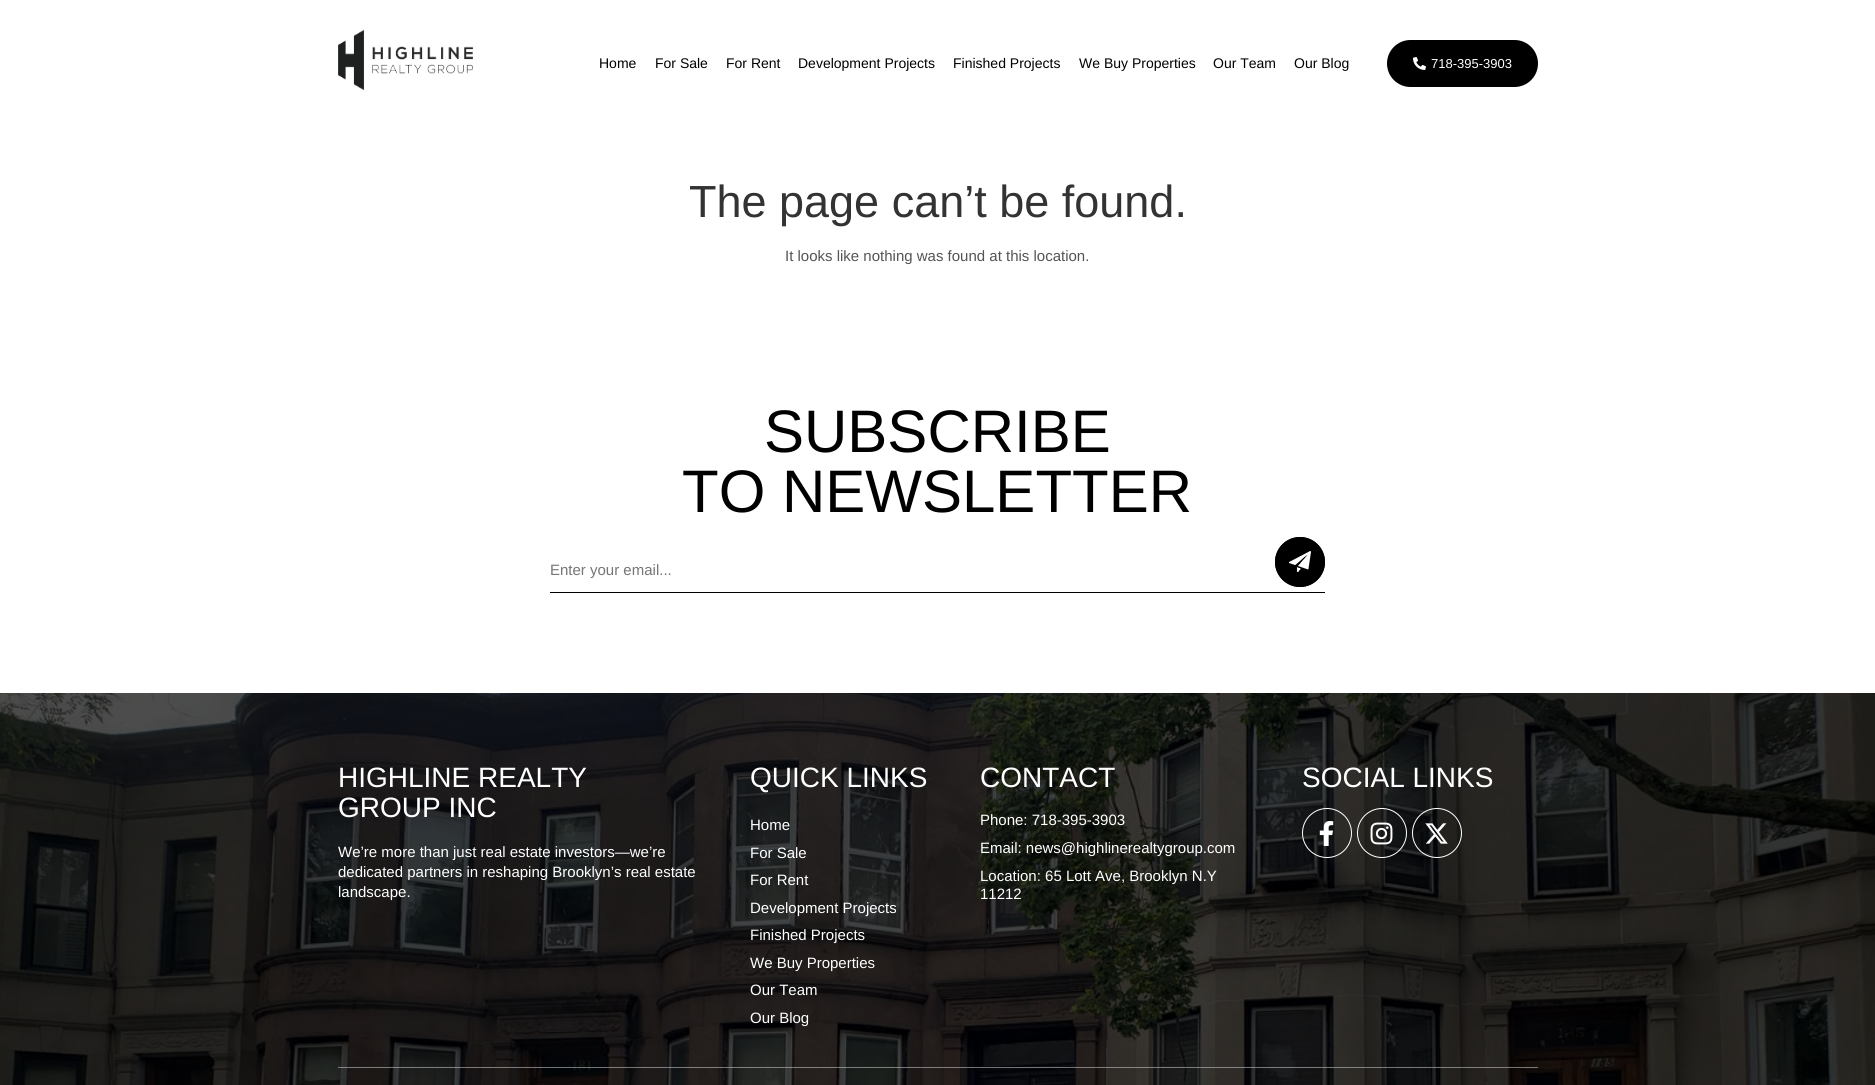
#include <cairo.h>
#include <math.h>
#include <stddef.h>


static void rgb(cairo_t *cr, int r, int g, int b)
{
	cairo_set_source_rgb(cr, r / 255.0, g / 255.0, b / 255.0);
}

static void face(cairo_t *cr, const char *family, double size, int italic, int bold)
{
	cairo_select_font_face(cr, family, italic ? CAIRO_FONT_SLANT_ITALIC : CAIRO_FONT_SLANT_NORMAL,
		bold ? CAIRO_FONT_WEIGHT_BOLD : CAIRO_FONT_WEIGHT_NORMAL);
	cairo_set_font_size(cr, size);
}

static void label(cairo_t *cr, double x, double y, const char *s)
{
	cairo_move_to(cr, x, y);
	cairo_show_text(cr, s);
}

static void rect(cairo_t *cr, double x, double y, double w, double h)
{
	cairo_rectangle(cr, x, y, w, h);
	cairo_fill(cr);
}

static void rrect(cairo_t *cr, double x, double y, double w, double h, double r)
{
	cairo_new_sub_path(cr);
	cairo_arc(cr, x + w - r, y + h - r, r, 0, M_PI / 2);
	cairo_arc(cr, x + r, y + h - r, r, M_PI / 2, M_PI);
	cairo_arc(cr, x + r, y + r, r, M_PI, 1.5 * M_PI);
	cairo_arc(cr, x + w - r, y + r, r, 1.5 * M_PI, 2 * M_PI);
	cairo_close_path(cr);
}

static void image(cairo_t *cr, const char *path, double x, double y, double w, double h)
{
	cairo_surface_t *image = cairo_image_surface_create_from_png(path);
	cairo_save(cr);
	cairo_set_source_surface(cr, image, x, y);
	cairo_rectangle(cr, x, y, w, h);
	cairo_fill(cr);
	cairo_restore(cr);
	cairo_surface_destroy(image);
}

static void draw(cairo_t *cr) {
	rgb(cr, 255, 255, 255);
	cairo_paint(cr);
	image(cr, "image0.png", 338, 30, 135, 60);
	face(cr, "Liberation Sans", 14, 0, 0);
	rgb(cr, 0, 0, 0);
	label(cr, 599, 68, "Home");
	label(cr, 655, 68, "For Sale");
	label(cr, 726, 68, "For Rent");
	label(cr, 798, 68, "Development Projects");
	label(cr, 953, 68, "Finished Projects");
	label(cr, 1079, 68, "We Buy Properties");
	label(cr, 1213, 68, "Our Team");
	label(cr, 1294, 68, "Our Blog");
	rrect(cr, 1387, 40, 151, 47, 23.5);
	cairo_fill(cr);
	image(cr, "image1.png", 1413, 57, 13, 13);
	face(cr, "Liberation Sans", 13, 0, 0);
	rgb(cr, 255, 255, 255);
	label(cr, 1431, 68, "718-395-3903");
	face(cr, "Liberation Sans", 45, 0, 0);
	rgb(cr, 51, 51, 51);
	label(cr, 689, 217, "The page can’t be found.");
	face(cr, "Liberation Sans", 15, 0, 0);
	rgb(cr, 85, 84, 84);
	label(cr, 785, 261, "It looks like nothing was found at this location.");
	face(cr, "Liberation Sans", 60, 0, 0);
	rgb(cr, 0, 0, 0);
	label(cr, 764, 452, "SUBSCRIBE");
	label(cr, 682, 512, "TO NEWSLETTER");
	rect(cr, 550, 592, 775, 1);
	face(cr, "Liberation Sans", 15, 0, 0);
	rgb(cr, 117, 117, 117);
	label(cr, 550, 575, "Enter your email...");
	rgb(cr, 0, 0, 0);
	cairo_new_path(cr);
	cairo_arc(cr, 1300, 562, 25, 0, 2 * M_PI);
	cairo_fill(cr);
	image(cr, "image2.png", 1289, 551, 22, 21);
	cairo_arc(cr, 1300, 562, 24.5, 0, 2 * M_PI);
	cairo_set_line_width(cr, 1);
	cairo_stroke(cr);
	image(cr, "image3.png", 0, 693, 1875, 392);
	face(cr, "Liberation Sans", 28, 0, 0);
	rgb(cr, 255, 255, 255);
	label(cr, 338, 787, "HIGHLINE REALTY");
	label(cr, 338, 817, "GROUP INC");
	face(cr, "Liberation Sans", 15, 0, 0);
	label(cr, 338, 857, "We’re more than just real estate investors—we’re");
	label(cr, 338, 877, "dedicated partners in reshaping Brooklyn’s real estate");
	label(cr, 338, 897, "landscape.");
	face(cr, "Liberation Sans", 28, 0, 0);
	label(cr, 750, 787, "QUICK LINKS");
	face(cr, "Liberation Sans", 15, 0, 0);
	label(cr, 750, 830, "Home");
	label(cr, 750, 858, "For Sale");
	label(cr, 750, 885, "For Rent");
	label(cr, 750, 913, "Development Projects");
	label(cr, 750, 940, "Finished Projects");
	label(cr, 750, 968, "We Buy Properties");
	label(cr, 750, 995, "Our Team");
	label(cr, 750, 1023, "Our Blog");
	face(cr, "Liberation Sans", 28, 0, 0);
	label(cr, 980, 787, "CONTACT");
	face(cr, "Liberation Sans", 15, 0, 0);
	label(cr, 980, 825, "Phone: 718-395-3903");
	label(cr, 980, 853, "Email: news@highlinerealtygroup.com");
	label(cr, 980, 881, "Location: 65 Lott Ave, Brooklyn N.Y");
	label(cr, 980, 899, "11212");
	face(cr, "Liberation Sans", 28, 0, 0);
	label(cr, 1302, 787, "SOCIAL LINKS");
	cairo_new_path(cr);
	cairo_arc(cr, 1327, 833, 24.5, 0, 2 * M_PI);
	cairo_stroke(cr);
	image(cr, "image4.png", 1319, 821, 15, 25);
	cairo_arc(cr, 1382, 833, 24.5, 0, 2 * M_PI);
	cairo_stroke(cr);
	image(cr, "image5.png", 1370, 822, 23, 23);
	cairo_arc(cr, 1437, 833, 24.5, 0, 2 * M_PI);
	cairo_stroke(cr);
	image(cr, "image6.png", 1425, 823, 23, 21);
	cairo_set_source_rgba(cr, 0.792, 0.792, 0.792, 0.56);
	rect(cr, 338, 1067, 1200, 1);
}

int main(void) {
	cairo_surface_t *surface = cairo_image_surface_create(CAIRO_FORMAT_RGB24, 1875, 1085);
	cairo_t *cr = cairo_create(surface);
	cairo_font_options_t *options = cairo_font_options_create();
	cairo_font_options_set_hint_metrics(options, CAIRO_HINT_METRICS_OFF);
	cairo_font_options_set_hint_style(options, CAIRO_HINT_STYLE_NONE);
	cairo_set_font_options(cr, options);
	cairo_set_miter_limit(cr, 4);
	draw(cr);
	cairo_surface_write_to_png(surface, "render.png");
	cairo_font_options_destroy(options);
	cairo_destroy(cr);
	cairo_surface_destroy(surface);
	return 0;
}
